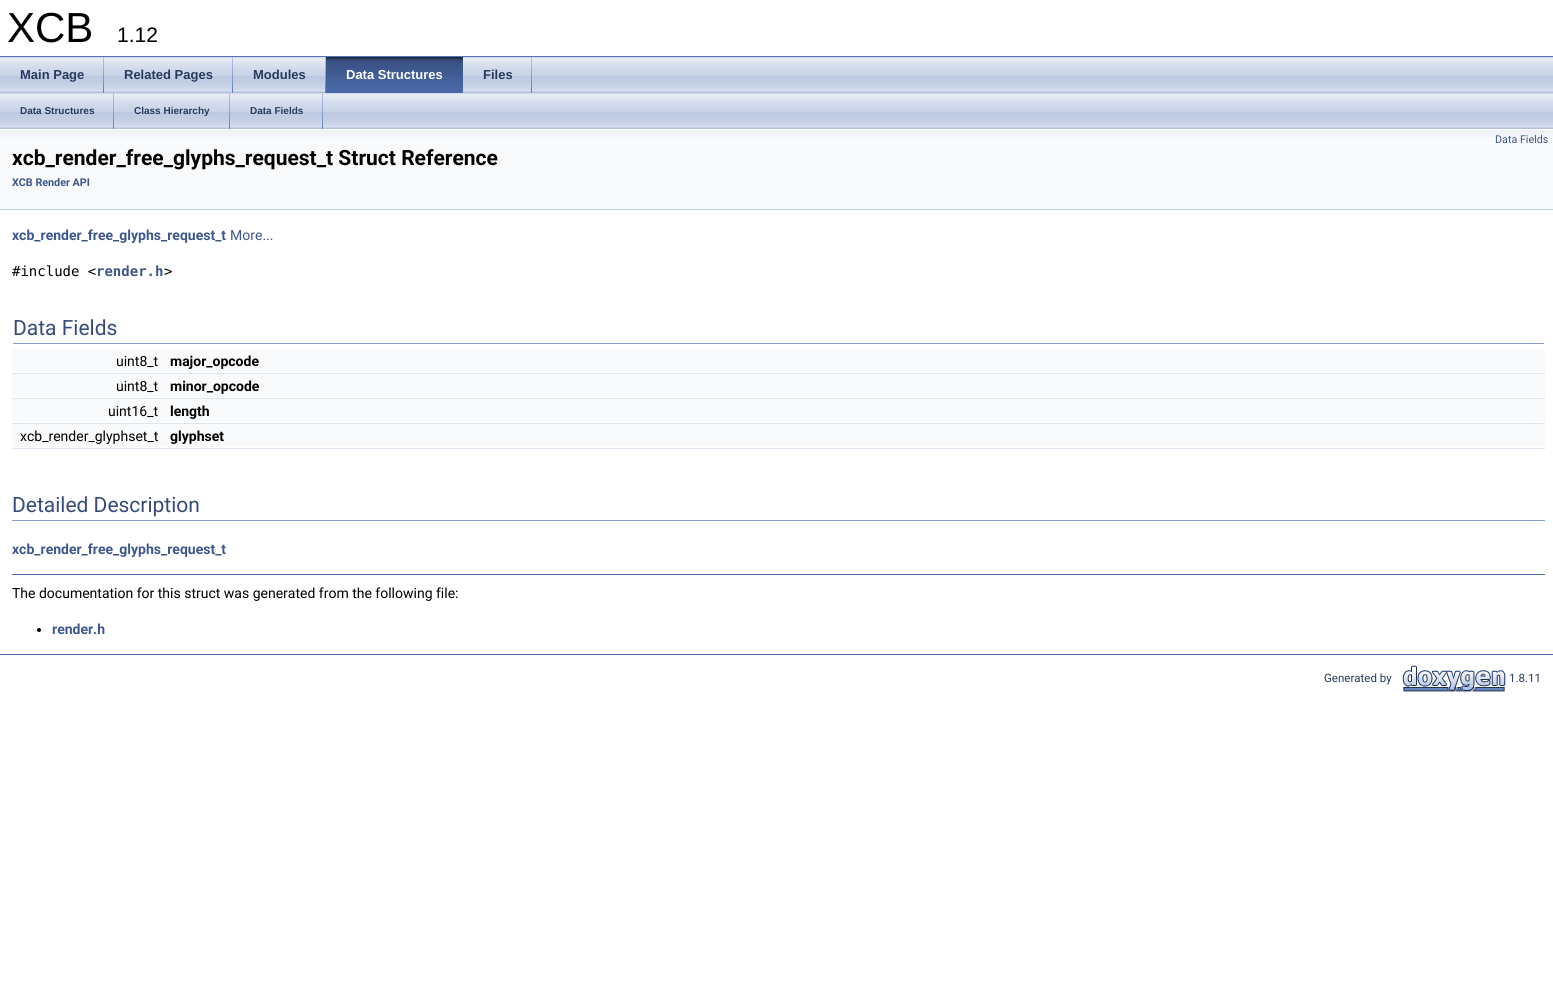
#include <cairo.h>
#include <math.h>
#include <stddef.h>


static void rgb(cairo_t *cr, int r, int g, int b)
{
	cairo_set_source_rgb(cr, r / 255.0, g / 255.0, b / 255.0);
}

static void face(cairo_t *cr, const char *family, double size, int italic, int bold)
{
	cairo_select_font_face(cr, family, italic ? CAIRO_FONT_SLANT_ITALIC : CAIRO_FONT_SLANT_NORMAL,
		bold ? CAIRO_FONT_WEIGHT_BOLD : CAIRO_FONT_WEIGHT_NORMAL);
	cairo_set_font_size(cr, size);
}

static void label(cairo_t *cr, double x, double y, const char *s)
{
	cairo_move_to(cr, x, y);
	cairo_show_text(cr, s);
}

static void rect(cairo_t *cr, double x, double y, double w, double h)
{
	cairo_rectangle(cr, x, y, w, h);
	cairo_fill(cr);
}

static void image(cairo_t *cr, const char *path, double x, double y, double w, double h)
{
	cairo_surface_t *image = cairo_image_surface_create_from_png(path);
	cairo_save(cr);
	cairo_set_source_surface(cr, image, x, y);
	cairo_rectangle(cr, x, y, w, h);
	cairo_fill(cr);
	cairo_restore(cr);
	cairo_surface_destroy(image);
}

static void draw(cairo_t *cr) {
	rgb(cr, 255, 255, 255);
	cairo_paint(cr);
	rgb(cr, 83, 115, 180);
	rect(cr, 0, 56, 1553, 1);
	face(cr, "Liberation Sans", 42, 0, 0);
	rgb(cr, 0, 0, 0);
	label(cr, 7, 42, "XCB");
	face(cr, "Liberation Sans", 21, 0, 0);
	label(cr, 117, 42, "1.12");
	image(cr, "image0.png", 0, 57, 1553, 36);
	image(cr, "image1.png", 103, 57, 1, 36);
	face(cr, "Liberation Sans", 13, 0, 1);
	rgb(cr, 40, 58, 93);
	label(cr, 20, 79, "Main Page");
	image(cr, "image1.png", 232, 57, 1, 36);
	label(cr, 124, 79, "Related Pages");
	image(cr, "image1.png", 325, 57, 1, 36);
	label(cr, 253, 79, "Modules");
	image(cr, "image2.png", 326, 57, 137, 36);
	rgb(cr, 255, 255, 255);
	label(cr, 346, 79, "Data Structures");
	image(cr, "image1.png", 531, 57, 1, 36);
	rgb(cr, 40, 58, 93);
	label(cr, 483, 79, "Files");
	image(cr, "image0.png", 0, 93, 1553, 36);
	image(cr, "image1.png", 113, 93, 1, 36);
	face(cr, "Liberation Sans", 10, 0, 1);
	label(cr, 20, 114, "Data Structures");
	image(cr, "image1.png", 229, 93, 1, 36);
	label(cr, 134, 114, "Class Hierarchy");
	image(cr, "image1.png", 322, 93, 1, 36);
	label(cr, 250, 114, "Data Fields");
	rgb(cr, 249, 250, 252);
	rect(cr, 0, 137, 1553, 72);
	image(cr, "image3.png", 0, 129, 1553, 8);
	rgb(cr, 196, 207, 229);
	rect(cr, 0, 209, 1553, 1);
	face(cr, "Roboto", 10.75, 0, 0);
	rgb(cr, 61, 87, 140);
	label(cr, 1495, 143, "Data Fields");
	face(cr, "Roboto", 21, 0, 1);
	rgb(cr, 0, 0, 0);
	label(cr, 12, 165, "xcb_render_free_glyphs_request_t Struct Reference");
	face(cr, "Roboto", 10.75, 0, 1);
	rgb(cr, 61, 87, 140);
	label(cr, 12, 186, "XCB Render API");
	face(cr, "Roboto", 14, 0, 1);
	label(cr, 12, 240, "xcb_render_free_glyphs_request_t");
	face(cr, "Roboto", 14, 0, 0);
	label(cr, 230, 240, "More...");
	face(cr, "DejaVu Sans Mono", 14, 0, 0);
	rgb(cr, 0, 0, 0);
	label(cr, 12, 276, "#include <");
	face(cr, "DejaVu Sans Mono", 14, 0, 1);
	rgb(cr, 61, 87, 140);
	label(cr, 96, 276, "render.h");
	face(cr, "DejaVu Sans Mono", 14, 0, 0);
	rgb(cr, 0, 0, 0);
	label(cr, 164, 276, ">");
	rgb(cr, 135, 158, 203);
	rect(cr, 13, 343, 1531, 1);
	face(cr, "Roboto", 21, 0, 0);
	rgb(cr, 53, 76, 123);
	label(cr, 13, 335, "Data Fields");
	rgb(cr, 249, 250, 252);
	rect(cr, 12, 349, 1533, 23);
	face(cr, "Roboto", 14, 0, 0);
	rgb(cr, 0, 0, 0);
	label(cr, 116, 366, "uint8_t");
	face(cr, "Roboto", 14, 0, 1);
	label(cr, 170, 366, "major_opcode");
	rgb(cr, 222, 228, 240);
	rect(cr, 12, 373, 1533, 1);
	rgb(cr, 249, 250, 252);
	rect(cr, 12, 374, 1533, 23);
	face(cr, "Roboto", 14, 0, 0);
	rgb(cr, 0, 0, 0);
	label(cr, 116, 391, "uint8_t");
	face(cr, "Roboto", 14, 0, 1);
	label(cr, 170, 391, "minor_opcode");
	rgb(cr, 222, 228, 240);
	rect(cr, 12, 398, 1533, 1);
	rgb(cr, 249, 250, 252);
	rect(cr, 12, 399, 1533, 23);
	face(cr, "Roboto", 14, 0, 0);
	rgb(cr, 0, 0, 0);
	label(cr, 108, 416, "uint16_t");
	face(cr, "Roboto", 14, 0, 1);
	label(cr, 170, 416, "length");
	rgb(cr, 222, 228, 240);
	rect(cr, 12, 423, 1533, 1);
	rgb(cr, 249, 250, 252);
	rect(cr, 12, 424, 1533, 23);
	face(cr, "Roboto", 14, 0, 0);
	rgb(cr, 0, 0, 0);
	label(cr, 20, 441, "xcb_render_glyphset_t");
	face(cr, "Roboto", 14, 0, 1);
	label(cr, 170, 441, "glyphset");
	rgb(cr, 222, 228, 240);
	rect(cr, 12, 448, 1533, 1);
	rgb(cr, 135, 158, 203);
	rect(cr, 12, 520, 1533, 1);
	face(cr, "Roboto", 21, 0, 0);
	rgb(cr, 53, 76, 123);
	label(cr, 12, 512, "Detailed Description");
	face(cr, "Roboto", 14, 0, 1);
	rgb(cr, 61, 87, 140);
	label(cr, 12, 554, "xcb_render_free_glyphs_request_t");
	rgb(cr, 74, 106, 170);
	rect(cr, 12, 574, 1533, 1);
	face(cr, "Roboto", 14, 0, 0);
	rgb(cr, 0, 0, 0);
	label(cr, 12, 598, "The documentation for this struct was generated from the following file:");
	cairo_new_path(cr);
	cairo_arc(cr, 39, 630, 2, 0, 2 * M_PI);
	cairo_fill(cr);
	face(cr, "Roboto", 14, 0, 1);
	rgb(cr, 61, 87, 140);
	label(cr, 52, 634, "render.h");
	rgb(cr, 74, 106, 170);
	rect(cr, 0, 654, 1553, 1);
	face(cr, "Roboto", 11.5, 0, 0);
	rgb(cr, 40, 58, 93);
	label(cr, 1324, 682, "Generated by");
	image(cr, "image4.png", 1402, 665, 104, 27);
	label(cr, 1509, 682, "1.8.11");
}

int main(void) {
	cairo_surface_t *surface = cairo_image_surface_create(CAIRO_FORMAT_RGB24, 1553, 986);
	cairo_t *cr = cairo_create(surface);
	cairo_font_options_t *options = cairo_font_options_create();
	cairo_font_options_set_hint_metrics(options, CAIRO_HINT_METRICS_OFF);
	cairo_font_options_set_hint_style(options, CAIRO_HINT_STYLE_NONE);
	cairo_set_font_options(cr, options);
	cairo_set_miter_limit(cr, 4);
	draw(cr);
	cairo_surface_write_to_png(surface, "render.png");
	cairo_font_options_destroy(options);
	cairo_destroy(cr);
	cairo_surface_destroy(surface);
	return 0;
}
